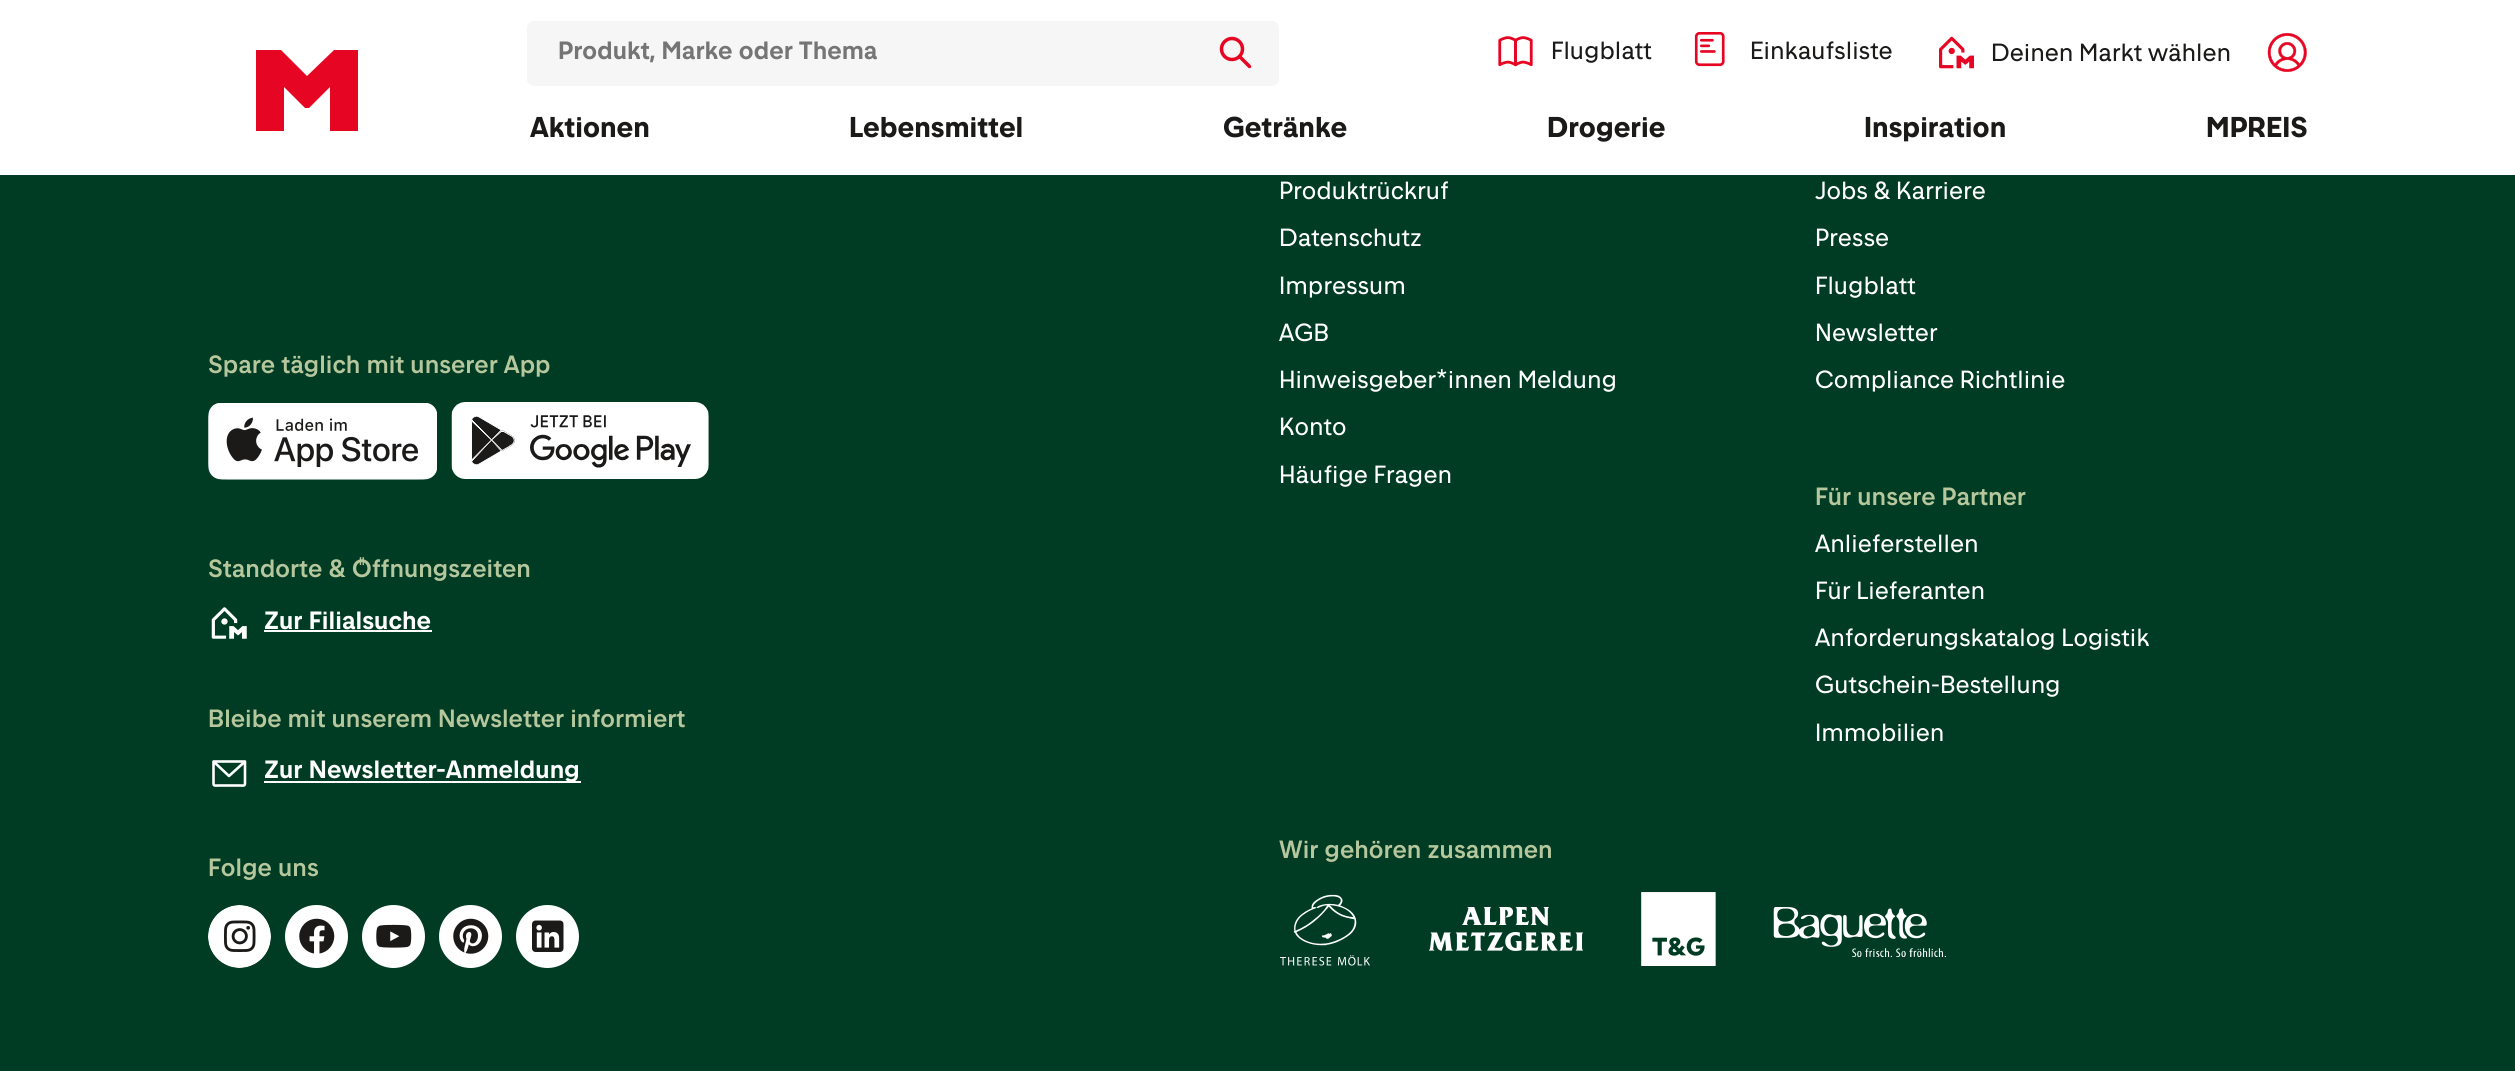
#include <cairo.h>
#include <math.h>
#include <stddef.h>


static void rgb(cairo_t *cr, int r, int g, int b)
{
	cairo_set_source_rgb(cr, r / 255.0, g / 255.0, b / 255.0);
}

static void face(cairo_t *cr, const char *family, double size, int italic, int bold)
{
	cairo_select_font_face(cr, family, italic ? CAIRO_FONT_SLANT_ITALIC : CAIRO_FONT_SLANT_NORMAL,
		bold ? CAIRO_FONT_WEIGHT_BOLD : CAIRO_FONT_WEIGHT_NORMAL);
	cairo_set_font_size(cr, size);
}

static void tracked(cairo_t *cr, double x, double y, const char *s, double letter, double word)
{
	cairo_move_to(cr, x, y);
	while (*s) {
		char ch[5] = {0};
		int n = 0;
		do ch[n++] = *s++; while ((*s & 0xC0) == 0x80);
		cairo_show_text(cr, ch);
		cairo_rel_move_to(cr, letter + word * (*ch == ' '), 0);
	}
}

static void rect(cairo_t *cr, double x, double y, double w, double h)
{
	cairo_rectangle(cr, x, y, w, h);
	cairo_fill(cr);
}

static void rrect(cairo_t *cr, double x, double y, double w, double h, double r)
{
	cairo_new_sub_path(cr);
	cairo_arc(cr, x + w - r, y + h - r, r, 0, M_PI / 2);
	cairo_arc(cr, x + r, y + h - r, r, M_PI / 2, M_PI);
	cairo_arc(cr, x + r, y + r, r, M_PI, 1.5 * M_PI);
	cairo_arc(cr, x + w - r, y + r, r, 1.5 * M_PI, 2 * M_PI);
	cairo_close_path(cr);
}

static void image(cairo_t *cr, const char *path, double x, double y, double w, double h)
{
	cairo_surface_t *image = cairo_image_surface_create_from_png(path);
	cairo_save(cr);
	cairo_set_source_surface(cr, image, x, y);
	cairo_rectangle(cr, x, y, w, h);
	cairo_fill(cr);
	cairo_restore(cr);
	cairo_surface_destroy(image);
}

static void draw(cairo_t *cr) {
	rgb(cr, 0, 60, 35);
	cairo_paint(cr);
	rgb(cr, 255, 255, 255);
	rect(cr, 0, 0, 2515, 175);
	rgb(cr, 230, 5, 35);
	cairo_new_path(cr);
	cairo_move_to(cr, 256, 131);
	cairo_line_to(cr, 284, 131);
	cairo_line_to(cr, 284, 87);
	cairo_line_to(cr, 305, 108);
	cairo_line_to(cr, 309, 108);
	cairo_line_to(cr, 330, 87);
	cairo_line_to(cr, 330, 131);
	cairo_line_to(cr, 358, 131);
	cairo_line_to(cr, 358, 50);
	cairo_line_to(cr, 334, 50);
	cairo_line_to(cr, 307, 76);
	cairo_line_to(cr, 281, 50);
	cairo_line_to(cr, 256, 50);
	cairo_close_path(cr);
	cairo_fill(cr);
	rgb(cr, 246, 246, 246);
	rrect(cr, 527, 21, 752, 65, 7);
	cairo_fill(cr);
	face(cr, "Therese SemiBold", 24.5, 0, 0);
	rgb(cr, 117, 117, 117);
	tracked(cr, 558, 59, "Produkt, Marke oder Thema", 0.1, 0);
	image(cr, "image0.png", 1219, 36, 33, 33);
	image(cr, "image1.png", 1498, 36, 35, 31);
	face(cr, "Therese Light", 24.5, 0, 0);
	rgb(cr, 27, 26, 25);
	tracked(cr, 1551, 59, "Flugblatt", 0.1, 0);
	image(cr, "image2.png", 1694, 32, 31, 35);
	tracked(cr, 1750, 59, "Einkaufsliste", 0.1, 0);
	image(cr, "image3.png", 1939, 36, 35, 33);
	tracked(cr, 1991, 61, "Deinen Markt wählen", 0.1, 0);
	image(cr, "image4.png", 2267, 33, 40, 39);
	face(cr, "Therese", 28, 0, 1);
	tracked(cr, 530, 137, "Aktionen", 0.1, 0);
	tracked(cr, 849, 137, "Lebensmittel", 0.1, 0);
	tracked(cr, 1223, 137, "Getränke", 0.1, 0);
	tracked(cr, 1547, 137, "Drogerie", 0.1, 0);
	tracked(cr, 1864, 137, "Inspiration", 0.1, 0);
	tracked(cr, 2206, 137, "MPREIS", 0.1, 0);
	face(cr, "Therese Medium", 24.5, 0, 0);
	rgb(cr, 182, 199, 157);
	tracked(cr, 208, 373, "Spare täglich mit unserer App", 0.1, 0);
	image(cr, "image5.png", 208, 403, 229, 77);
	image(cr, "image6.png", 451, 402, 258, 77);
	tracked(cr, 208, 577, "Standorte & Öffnungszeiten", 0.1, 0);
	image(cr, "image7.png", 211, 607, 36, 32);
	face(cr, "Therese SemiBold", 24.5, 0, 0);
	rgb(cr, 255, 255, 255);
	tracked(cr, 264, 629, "Zur Filialsuche", 0.1, 0);
	rect(cr, 264, 630, 168, 2);
	face(cr, "Therese Medium", 24.5, 0, 0);
	rgb(cr, 182, 199, 157);
	tracked(cr, 208, 727, "Bleibe mit unserem Newsletter informiert", 0.1, 0);
	cairo_new_path(cr);
	cairo_move_to(cr, 213.5, 761.5);
	cairo_line_to(cr, 245, 761.5);
	cairo_line_to(cr, 245, 780.5);
	cairo_curve_to(cr, 245, 786.5, 245.5, 785.5, 239, 785.5);
	cairo_line_to(cr, 219.5, 785.5);
	cairo_curve_to(cr, 213, 785.5, 213.5, 786.5, 213.5, 780.5);
	cairo_close_path(cr);
	cairo_move_to(cr, 245, 761.5);
	cairo_line_to(cr, 229, 776);
	cairo_line_to(cr, 213.5, 761.5);
	rgb(cr, 255, 255, 255);
	cairo_set_line_width(cr, 2.6);
	cairo_set_line_cap(cr, CAIRO_LINE_CAP_ROUND);
	cairo_set_line_join(cr, CAIRO_LINE_JOIN_ROUND);
	cairo_stroke(cr);
	rect(cr, 264, 781, 317, 2);
	face(cr, "Therese SemiBold", 24.5, 0, 0);
	tracked(cr, 264, 778, "Zur Newsletter-Anmeldung", 0.1, 0);
	face(cr, "Therese Medium", 24.5, 0, 0);
	rgb(cr, 182, 199, 157);
	tracked(cr, 208, 876, "Folge uns", 0.1, 0);
	image(cr, "image8.png", 208, 905, 63, 63);
	image(cr, "image9.png", 285, 905, 63, 63);
	image(cr, "image10.png", 362, 905, 63, 63);
	image(cr, "image11.png", 439, 905, 63, 63);
	image(cr, "image12.png", 516, 905, 63, 63);
	face(cr, "Therese Light", 24.5, 0, 0);
	rgb(cr, 255, 255, 255);
	tracked(cr, 1279, 199, "Produktrückruf", 0.1, 0);
	tracked(cr, 1279, 246, "Datenschutz", 0.1, 0);
	tracked(cr, 1279, 294, "Impressum", 0.1, 0);
	tracked(cr, 1279, 341, "AGB", 0.1, 0);
	tracked(cr, 1279, 388, "Hinweisgeber*innen Meldung", 0.1, 0);
	tracked(cr, 1279, 435, "Konto", 0.1, 0);
	tracked(cr, 1279, 483, "Häufige Fragen", 0.1, 0);
	tracked(cr, 1815, 199, "Jobs & Karriere", 0.1, 0);
	tracked(cr, 1815, 246, "Presse", 0.1, 0);
	tracked(cr, 1815, 294, "Flugblatt", 0.1, 0);
	tracked(cr, 1815, 341, "Newsletter", 0.1, 0);
	tracked(cr, 1815, 388, "Compliance Richtlinie", 0.1, 0);
	face(cr, "Therese Medium", 24.5, 0, 0);
	rgb(cr, 182, 199, 157);
	tracked(cr, 1815, 505, "Für unsere Partner", 0.1, 0);
	face(cr, "Therese Light", 24.5, 0, 0);
	rgb(cr, 255, 255, 255);
	tracked(cr, 1815, 552, "Anlieferstellen", 0.1, 0);
	tracked(cr, 1815, 599, "Für Lieferanten", 0.1, 0);
	tracked(cr, 1815, 646, "Anforderungskatalog Logistik", 0.1, 0);
	tracked(cr, 1815, 693, "Gutschein-Bestellung", 0.1, 0);
	tracked(cr, 1815, 741, "Immobilien", 0.1, 0);
	face(cr, "Therese Medium", 24.5, 0, 0);
	rgb(cr, 182, 199, 157);
	tracked(cr, 1279, 858, "Wir gehören zusammen", 0.1, 0);
	image(cr, "image13.png", 1280, 894, 90, 72);
	image(cr, "image14.png", 1429, 907, 154, 44);
	image(cr, "image15.png", 1641, 892, 75, 74);
	image(cr, "image16.png", 1773, 907, 173, 50);
}

int main(void) {
	cairo_surface_t *surface = cairo_image_surface_create(CAIRO_FORMAT_RGB24, 2515, 1071);
	cairo_t *cr = cairo_create(surface);
	cairo_font_options_t *options = cairo_font_options_create();
	cairo_font_options_set_hint_metrics(options, CAIRO_HINT_METRICS_OFF);
	cairo_font_options_set_hint_style(options, CAIRO_HINT_STYLE_NONE);
	cairo_set_font_options(cr, options);
	cairo_set_miter_limit(cr, 4);
	draw(cr);
	cairo_surface_write_to_png(surface, "render.png");
	cairo_font_options_destroy(options);
	cairo_destroy(cr);
	cairo_surface_destroy(surface);
	return 0;
}
